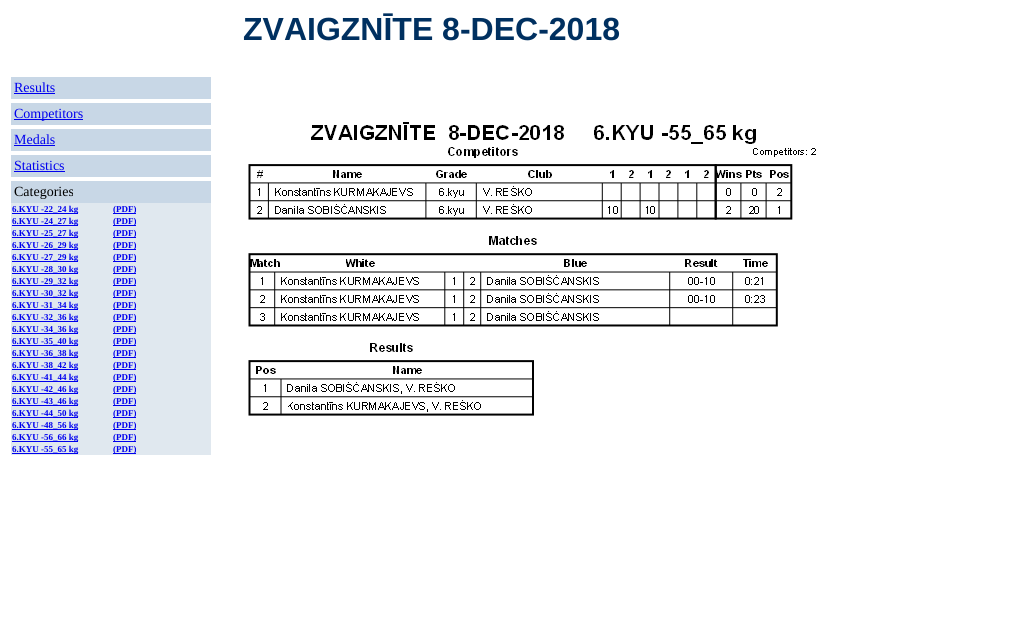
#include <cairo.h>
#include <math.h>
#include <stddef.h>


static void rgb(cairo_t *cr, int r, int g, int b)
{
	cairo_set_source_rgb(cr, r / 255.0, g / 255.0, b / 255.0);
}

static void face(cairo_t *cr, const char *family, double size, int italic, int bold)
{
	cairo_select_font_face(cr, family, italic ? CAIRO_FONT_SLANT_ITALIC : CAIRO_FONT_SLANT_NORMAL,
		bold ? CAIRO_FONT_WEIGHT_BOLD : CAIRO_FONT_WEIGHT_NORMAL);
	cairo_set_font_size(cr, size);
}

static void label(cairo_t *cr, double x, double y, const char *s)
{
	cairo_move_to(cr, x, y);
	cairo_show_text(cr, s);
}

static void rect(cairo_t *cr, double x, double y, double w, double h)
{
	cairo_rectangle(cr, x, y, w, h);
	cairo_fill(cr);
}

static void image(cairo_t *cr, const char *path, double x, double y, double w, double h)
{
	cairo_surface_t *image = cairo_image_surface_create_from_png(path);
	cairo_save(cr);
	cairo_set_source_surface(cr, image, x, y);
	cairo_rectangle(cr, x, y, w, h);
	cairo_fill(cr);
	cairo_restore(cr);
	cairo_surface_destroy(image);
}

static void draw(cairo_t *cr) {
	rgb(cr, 255, 255, 255);
	cairo_paint(cr);
	face(cr, "Liberation Sans", 32, 0, 1);
	rgb(cr, 0, 48, 96);
	label(cr, 243, 40, "ZVAIGZNĪTE 8-DEC-2018");
	rgb(cr, 200, 215, 230);
	rect(cr, 11, 77, 200, 22);
	face(cr, "Liberation Serif", 14, 0, 0);
	rgb(cr, 0, 0, 238);
	label(cr, 14, 92, "Results");
	rect(cr, 14, 93, 41, 1);
	rgb(cr, 200, 215, 230);
	rect(cr, 11, 103, 200, 22);
	rgb(cr, 0, 0, 238);
	rect(cr, 14, 119, 69, 1);
	label(cr, 14, 118, "Competitors");
	rgb(cr, 200, 215, 230);
	rect(cr, 11, 129, 200, 22);
	rgb(cr, 0, 0, 238);
	label(cr, 14, 144, "Medals");
	rect(cr, 14, 145, 41, 1);
	rgb(cr, 200, 215, 230);
	rect(cr, 11, 155, 200, 22);
	rgb(cr, 0, 0, 238);
	label(cr, 14, 170, "Statistics");
	rect(cr, 14, 171, 51, 1);
	rgb(cr, 200, 215, 230);
	rect(cr, 11, 181, 200, 22);
	rgb(cr, 0, 0, 0);
	label(cr, 14, 196, "Categories");
	rgb(cr, 224, 232, 239);
	rect(cr, 11, 203, 200, 12);
	rgb(cr, 0, 0, 238);
	rect(cr, 12, 213, 66, 1);
	face(cr, "Liberation Serif", 9, 0, 1);
	label(cr, 12, 212, "6.KYU -22_24 kg");
	rect(cr, 113, 213, 23, 1);
	label(cr, 113, 212, "(PDF)");
	rgb(cr, 224, 232, 239);
	rect(cr, 11, 215, 200, 12);
	rgb(cr, 0, 0, 238);
	rect(cr, 12, 225, 66, 1);
	label(cr, 12, 224, "6.KYU -24_27 kg");
	rect(cr, 113, 225, 23, 1);
	label(cr, 113, 224, "(PDF)");
	rgb(cr, 224, 232, 239);
	rect(cr, 11, 227, 200, 12);
	rgb(cr, 0, 0, 238);
	rect(cr, 12, 237, 66, 1);
	label(cr, 12, 236, "6.KYU -25_27 kg");
	rect(cr, 113, 237, 23, 1);
	label(cr, 113, 236, "(PDF)");
	rgb(cr, 224, 232, 239);
	rect(cr, 11, 239, 200, 12);
	rgb(cr, 0, 0, 238);
	rect(cr, 12, 249, 66, 1);
	label(cr, 12, 248, "6.KYU -26_29 kg");
	rect(cr, 113, 249, 23, 1);
	label(cr, 113, 248, "(PDF)");
	rgb(cr, 224, 232, 239);
	rect(cr, 11, 251, 200, 12);
	rgb(cr, 0, 0, 238);
	rect(cr, 12, 261, 66, 1);
	label(cr, 12, 260, "6.KYU -27_29 kg");
	rect(cr, 113, 261, 23, 1);
	label(cr, 113, 260, "(PDF)");
	rgb(cr, 224, 232, 239);
	rect(cr, 11, 263, 200, 12);
	rgb(cr, 0, 0, 238);
	rect(cr, 12, 273, 66, 1);
	label(cr, 12, 272, "6.KYU -28_30 kg");
	rect(cr, 113, 273, 23, 1);
	label(cr, 113, 272, "(PDF)");
	rgb(cr, 224, 232, 239);
	rect(cr, 11, 275, 200, 12);
	rgb(cr, 0, 0, 238);
	rect(cr, 12, 285, 66, 1);
	label(cr, 12, 284, "6.KYU -29_32 kg");
	rect(cr, 113, 285, 23, 1);
	label(cr, 113, 284, "(PDF)");
	rgb(cr, 224, 232, 239);
	rect(cr, 11, 287, 200, 12);
	rgb(cr, 0, 0, 238);
	rect(cr, 12, 297, 66, 1);
	label(cr, 12, 296, "6.KYU -30_32 kg");
	rect(cr, 113, 297, 23, 1);
	label(cr, 113, 296, "(PDF)");
	rgb(cr, 224, 232, 239);
	rect(cr, 11, 299, 200, 12);
	rgb(cr, 0, 0, 238);
	rect(cr, 12, 309, 66, 1);
	label(cr, 12, 308, "6.KYU -31_34 kg");
	rect(cr, 113, 309, 23, 1);
	label(cr, 113, 308, "(PDF)");
	rgb(cr, 224, 232, 239);
	rect(cr, 11, 311, 200, 12);
	rgb(cr, 0, 0, 238);
	rect(cr, 12, 321, 66, 1);
	label(cr, 12, 320, "6.KYU -32_36 kg");
	rect(cr, 113, 321, 23, 1);
	label(cr, 113, 320, "(PDF)");
	rgb(cr, 224, 232, 239);
	rect(cr, 11, 323, 200, 12);
	rgb(cr, 0, 0, 238);
	rect(cr, 12, 333, 66, 1);
	label(cr, 12, 332, "6.KYU -34_36 kg");
	rect(cr, 113, 333, 23, 1);
	label(cr, 113, 332, "(PDF)");
	rgb(cr, 224, 232, 239);
	rect(cr, 11, 335, 200, 12);
	rgb(cr, 0, 0, 238);
	rect(cr, 12, 345, 66, 1);
	label(cr, 12, 344, "6.KYU -35_40 kg");
	rect(cr, 113, 345, 23, 1);
	label(cr, 113, 344, "(PDF)");
	rgb(cr, 224, 232, 239);
	rect(cr, 11, 347, 200, 12);
	rgb(cr, 0, 0, 238);
	rect(cr, 12, 357, 66, 1);
	label(cr, 12, 356, "6.KYU -36_38 kg");
	rect(cr, 113, 357, 23, 1);
	label(cr, 113, 356, "(PDF)");
	rgb(cr, 224, 232, 239);
	rect(cr, 11, 359, 200, 12);
	rgb(cr, 0, 0, 238);
	rect(cr, 12, 369, 66, 1);
	label(cr, 12, 368, "6.KYU -38_42 kg");
	rect(cr, 113, 369, 23, 1);
	label(cr, 113, 368, "(PDF)");
	rgb(cr, 224, 232, 239);
	rect(cr, 11, 371, 200, 12);
	rgb(cr, 0, 0, 238);
	rect(cr, 12, 381, 66, 1);
	label(cr, 12, 380, "6.KYU -41_44 kg");
	rect(cr, 113, 381, 23, 1);
	label(cr, 113, 380, "(PDF)");
	rgb(cr, 224, 232, 239);
	rect(cr, 11, 383, 200, 12);
	rgb(cr, 0, 0, 238);
	rect(cr, 12, 393, 66, 1);
	label(cr, 12, 392, "6.KYU -42_46 kg");
	rect(cr, 113, 393, 23, 1);
	label(cr, 113, 392, "(PDF)");
	rgb(cr, 224, 232, 239);
	rect(cr, 11, 395, 200, 12);
	rgb(cr, 0, 0, 238);
	rect(cr, 12, 405, 66, 1);
	label(cr, 12, 404, "6.KYU -43_46 kg");
	rect(cr, 113, 405, 23, 1);
	label(cr, 113, 404, "(PDF)");
	rgb(cr, 224, 232, 239);
	rect(cr, 11, 407, 200, 12);
	rgb(cr, 0, 0, 238);
	rect(cr, 12, 417, 66, 1);
	label(cr, 12, 416, "6.KYU -44_50 kg");
	rect(cr, 113, 417, 23, 1);
	label(cr, 113, 416, "(PDF)");
	rgb(cr, 224, 232, 239);
	rect(cr, 11, 419, 200, 12);
	rgb(cr, 0, 0, 238);
	rect(cr, 12, 429, 66, 1);
	label(cr, 12, 428, "6.KYU -48_56 kg");
	rect(cr, 113, 429, 23, 1);
	label(cr, 113, 428, "(PDF)");
	rgb(cr, 224, 232, 239);
	rect(cr, 11, 431, 200, 12);
	rgb(cr, 0, 0, 238);
	rect(cr, 12, 441, 66, 1);
	label(cr, 12, 440, "6.KYU -56_66 kg");
	rect(cr, 113, 441, 23, 1);
	label(cr, 113, 440, "(PDF)");
	rgb(cr, 224, 232, 239);
	rect(cr, 11, 443, 200, 12);
	rgb(cr, 0, 0, 238);
	rect(cr, 12, 453, 66, 1);
	label(cr, 12, 452, "6.KYU -55_65 kg");
	rect(cr, 113, 453, 23, 1);
	label(cr, 113, 452, "(PDF)");
	image(cr, "image0.png", 248, 122, 568, 294);
}

int main(void) {
	cairo_surface_t *surface = cairo_image_surface_create(CAIRO_FORMAT_RGB24, 1009, 633);
	cairo_t *cr = cairo_create(surface);
	cairo_font_options_t *options = cairo_font_options_create();
	cairo_font_options_set_hint_metrics(options, CAIRO_HINT_METRICS_OFF);
	cairo_font_options_set_hint_style(options, CAIRO_HINT_STYLE_NONE);
	cairo_set_font_options(cr, options);
	cairo_set_miter_limit(cr, 4);
	draw(cr);
	cairo_surface_write_to_png(surface, "render.png");
	cairo_font_options_destroy(options);
	cairo_destroy(cr);
	cairo_surface_destroy(surface);
	return 0;
}
